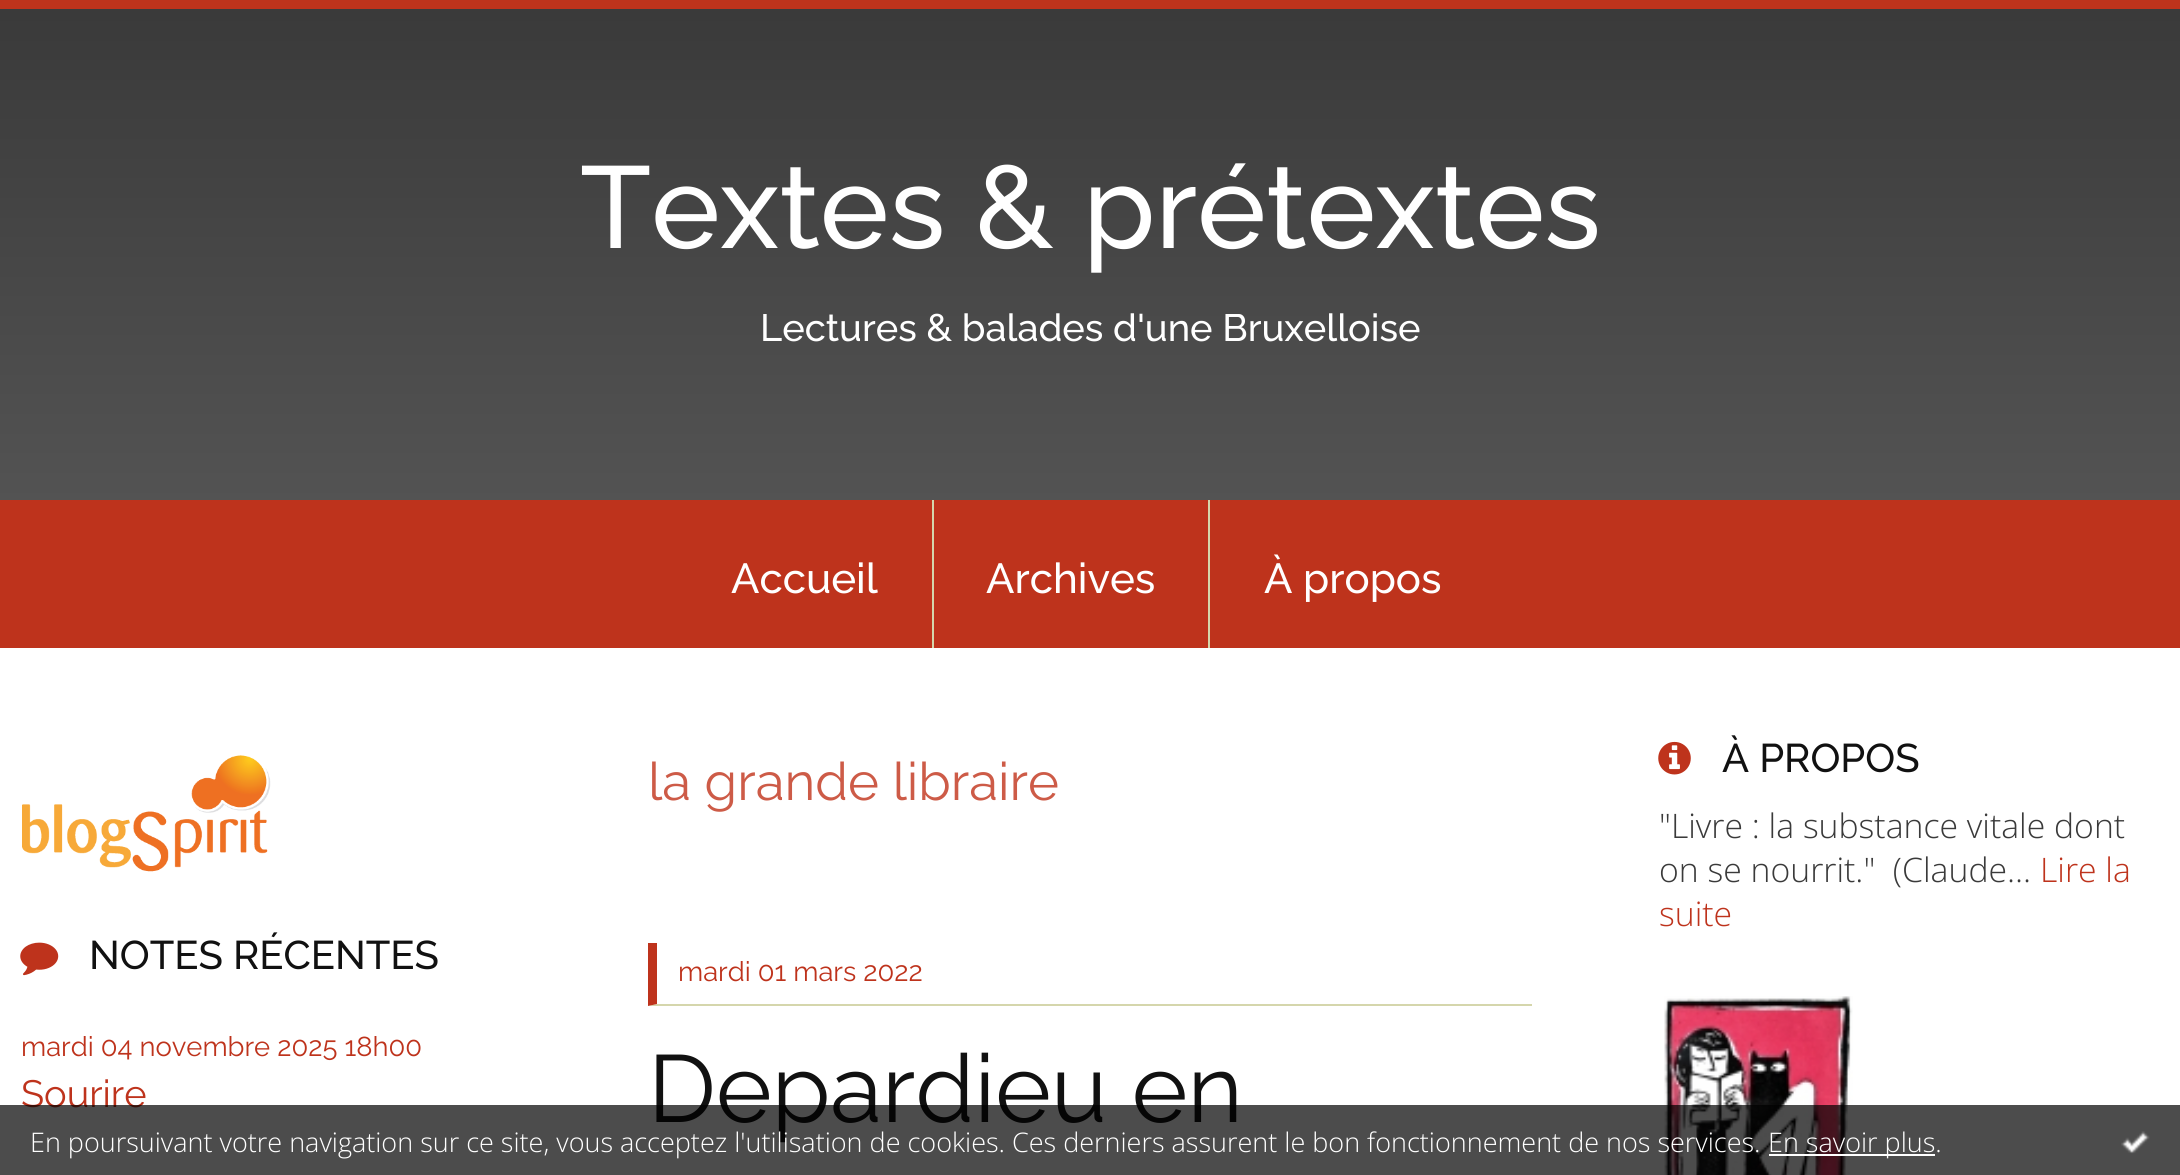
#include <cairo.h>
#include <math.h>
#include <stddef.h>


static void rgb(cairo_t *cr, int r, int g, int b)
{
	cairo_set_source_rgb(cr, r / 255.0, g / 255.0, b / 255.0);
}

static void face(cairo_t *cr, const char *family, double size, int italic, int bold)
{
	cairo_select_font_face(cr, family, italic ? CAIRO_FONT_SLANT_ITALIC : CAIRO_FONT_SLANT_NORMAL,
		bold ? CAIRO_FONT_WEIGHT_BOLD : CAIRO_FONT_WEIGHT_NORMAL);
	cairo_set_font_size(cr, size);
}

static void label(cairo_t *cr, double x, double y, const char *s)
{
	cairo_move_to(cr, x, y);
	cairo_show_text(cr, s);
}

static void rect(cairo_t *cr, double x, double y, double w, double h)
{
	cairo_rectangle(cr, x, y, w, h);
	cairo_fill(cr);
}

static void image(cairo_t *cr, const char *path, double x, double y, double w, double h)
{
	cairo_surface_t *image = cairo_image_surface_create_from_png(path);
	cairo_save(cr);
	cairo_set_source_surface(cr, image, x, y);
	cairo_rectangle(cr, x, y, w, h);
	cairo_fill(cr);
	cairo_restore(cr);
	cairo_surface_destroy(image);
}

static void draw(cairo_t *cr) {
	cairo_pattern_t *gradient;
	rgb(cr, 255, 255, 255);
	cairo_paint(cr);
	gradient = cairo_pattern_create_linear(1090, 9, 1090, 500);
	cairo_pattern_add_color_stop_rgba(gradient, 0, 0.227, 0.227, 0.227, 1);
	cairo_pattern_add_color_stop_rgba(gradient, 1, 0.325, 0.325, 0.325, 1);
	cairo_set_source(cr, gradient);
	cairo_pattern_destroy(gradient);
	rect(cr, 0, 9, 2180, 491);
	rgb(cr, 190, 51, 28);
	rect(cr, 0, 0, 2180, 9);
	face(cr, "Raleway Medium", 116, 0, 0);
	rgb(cr, 255, 255, 255);
	label(cr, 580, 248, "Textes & prétextes");
	face(cr, "Raleway Medium", 38, 0, 0);
	label(cr, 760, 341, "Lectures & balades d'une Bruxelloise");
	rgb(cr, 190, 51, 28);
	rect(cr, 0, 500, 2180, 148);
	face(cr, "Raleway Medium", 42, 0, 0);
	rgb(cr, 255, 255, 255);
	label(cr, 731, 593, "Accueil");
	rgb(cr, 213, 214, 172);
	rect(cr, 932, 500, 2, 148);
	rgb(cr, 255, 255, 255);
	label(cr, 986, 593, "Archives");
	rgb(cr, 213, 214, 172);
	rect(cr, 1208, 500, 2, 148);
	rgb(cr, 255, 255, 255);
	label(cr, 1264, 593, "À propos");
	image(cr, "image0.png", 22, 755, 249, 117);
	image(cr, "image1.png", 20, 942, 39, 34);
	face(cr, "Raleway Medium", 40, 0, 0);
	rgb(cr, 17, 17, 17);
	label(cr, 89, 969, "NOTES RÉCENTES");
	face(cr, "Raleway", 27.4, 0, 0);
	rgb(cr, 190, 51, 28);
	label(cr, 21, 1056, "mardi 04 novembre 2025 18h00");
	face(cr, "Raleway", 38, 0, 0);
	label(cr, 21, 1107, "Sourire");
	face(cr, "Raleway", 52.75, 0, 0);
	rgb(cr, 205, 91, 71);
	label(cr, 648, 800, "la grande libraire");
	rgb(cr, 213, 214, 172);
	cairo_new_path(cr);
	cairo_move_to(cr, 1532, 1006);
	cairo_line_to(cr, 648, 1006);
	cairo_line_to(cr, 657, 1004);
	cairo_line_to(cr, 1532, 1004);
	cairo_close_path(cr);
	cairo_fill(cr);
	rgb(cr, 190, 51, 28);
	cairo_new_path(cr);
	cairo_move_to(cr, 648, 1006);
	cairo_line_to(cr, 648, 943);
	cairo_line_to(cr, 657, 943);
	cairo_line_to(cr, 657, 1004);
	cairo_close_path(cr);
	cairo_fill(cr);
	face(cr, "Raleway", 27.4, 0, 0);
	label(cr, 678, 981, "mardi 01 mars 2022");
	face(cr, "Raleway", 95, 0, 0);
	rgb(cr, 17, 17, 17);
	label(cr, 648, 1122, "Depardieu en");
	image(cr, "image2.png", 1658, 741, 33, 34);
	face(cr, "Raleway Medium", 40, 0, 0);
	label(cr, 1722, 772, "À PROPOS");
	face(cr, "Open Sans Light", 33.75, 0, 0);
	rgb(cr, 58, 58, 58);
	label(cr, 1659, 838, "\"Livre : la substance vitale dont");
	label(cr, 1659, 882, "on se nourrit.\"  (Claude...");
	rgb(cr, 190, 51, 28);
	label(cr, 2040, 882, "Lire la");
	label(cr, 1659, 926, "suite");
	image(cr, "image3.png", 1664, 996, 189, 179);
	cairo_set_source_rgba(cr, 0, 0, 0, 0.7);
	rect(cr, 0, 1105, 2180, 70);
	face(cr, "Open Sans Light", 27, 0, 0);
	rgb(cr, 255, 255, 255);
	label(cr, 30, 1152, "En poursuivant votre navigation sur ce site, vous acceptez l'utilisation de cookies. Ces derniers assurent le bon fonctionnement de nos services.");
	rect(cr, 1769, 1154, 166, 2);
	label(cr, 1768, 1152, "En savoir plus.");
	image(cr, "image4.png", 2121, 1131, 29, 23);
}

int main(void) {
	cairo_surface_t *surface = cairo_image_surface_create(CAIRO_FORMAT_RGB24, 2180, 1175);
	cairo_t *cr = cairo_create(surface);
	cairo_font_options_t *options = cairo_font_options_create();
	cairo_font_options_set_hint_metrics(options, CAIRO_HINT_METRICS_OFF);
	cairo_font_options_set_hint_style(options, CAIRO_HINT_STYLE_NONE);
	cairo_set_font_options(cr, options);
	cairo_set_miter_limit(cr, 4);
	draw(cr);
	cairo_surface_write_to_png(surface, "render.png");
	cairo_font_options_destroy(options);
	cairo_destroy(cr);
	cairo_surface_destroy(surface);
	return 0;
}
